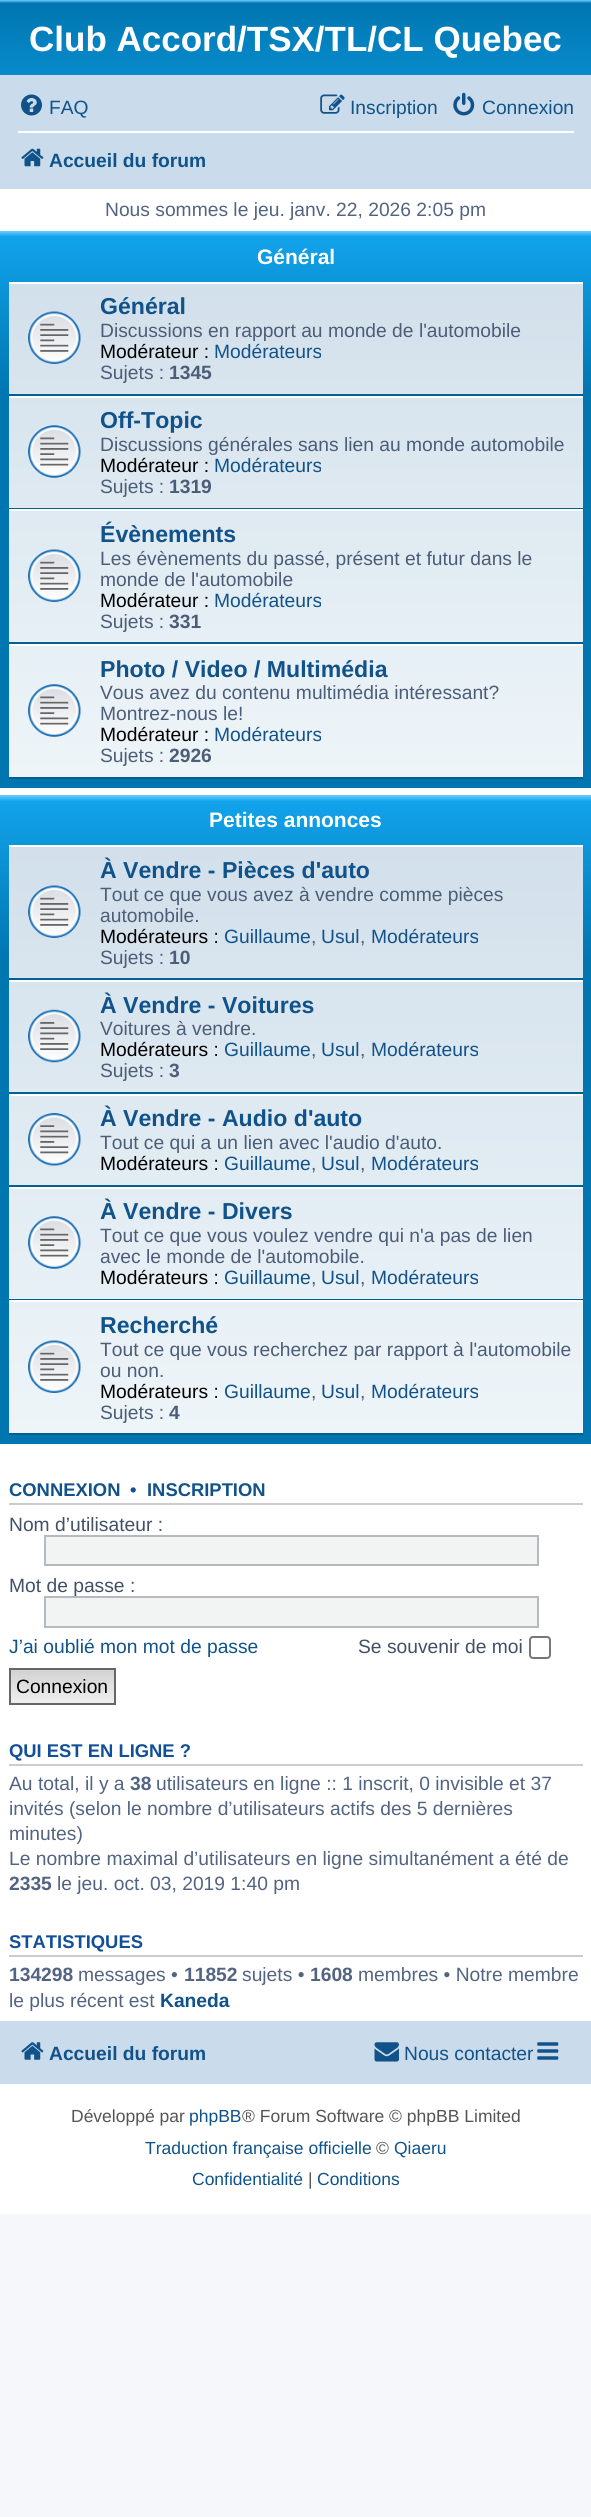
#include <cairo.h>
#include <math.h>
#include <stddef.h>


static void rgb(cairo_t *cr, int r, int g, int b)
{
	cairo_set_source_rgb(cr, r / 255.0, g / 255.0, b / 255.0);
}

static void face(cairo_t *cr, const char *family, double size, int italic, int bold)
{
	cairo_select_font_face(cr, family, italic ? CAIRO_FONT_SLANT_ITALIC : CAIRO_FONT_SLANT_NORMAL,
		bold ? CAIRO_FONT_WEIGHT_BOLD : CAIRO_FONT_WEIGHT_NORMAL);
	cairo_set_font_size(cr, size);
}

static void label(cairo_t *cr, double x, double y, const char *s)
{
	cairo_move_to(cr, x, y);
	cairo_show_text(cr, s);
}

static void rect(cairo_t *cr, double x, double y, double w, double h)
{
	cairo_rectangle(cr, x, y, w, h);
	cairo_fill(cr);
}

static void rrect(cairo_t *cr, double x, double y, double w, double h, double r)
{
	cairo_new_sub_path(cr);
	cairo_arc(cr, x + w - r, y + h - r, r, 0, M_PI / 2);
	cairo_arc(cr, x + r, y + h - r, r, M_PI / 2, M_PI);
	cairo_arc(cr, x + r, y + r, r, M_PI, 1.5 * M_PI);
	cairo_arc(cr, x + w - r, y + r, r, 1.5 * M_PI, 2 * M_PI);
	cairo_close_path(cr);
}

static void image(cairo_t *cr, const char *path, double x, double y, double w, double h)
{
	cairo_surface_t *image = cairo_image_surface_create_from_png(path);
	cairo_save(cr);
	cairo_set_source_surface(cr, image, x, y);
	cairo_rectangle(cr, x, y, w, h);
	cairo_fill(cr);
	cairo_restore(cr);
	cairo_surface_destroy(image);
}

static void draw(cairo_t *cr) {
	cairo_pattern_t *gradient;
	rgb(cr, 245, 247, 250);
	cairo_paint(cr);
	rgb(cr, 255, 255, 255);
	rect(cr, 0, 189, 591, 2025);
	gradient = cairo_pattern_create_linear(296, 0, 296, 161);
	cairo_pattern_add_color_stop_rgba(gradient, 0, 0.416, 0.808, 1, 1);
	cairo_pattern_add_color_stop_rgba(gradient, 0.02, 0, 0.463, 0.694, 1);
	cairo_pattern_add_color_stop_rgba(gradient, 1, 0.071, 0.639, 0.922, 1);
	cairo_set_source(cr, gradient);
	cairo_pattern_destroy(gradient);
	rect(cr, 0, 0, 591, 75);
	face(cr, "Liberation Sans", 35, 0, 1);
	rgb(cr, 255, 255, 255);
	label(cr, 29, 51, "Club Accord/TSX/TL/CL Quebec");
	rgb(cr, 202, 220, 235);
	rect(cr, 0, 75, 591, 114);
	image(cr, "image0.png", 21, 94, 21, 22);
	face(cr, "Liberation Sans", 19.25, 0, 0);
	rgb(cr, 16, 82, 137);
	label(cr, 49, 114, "FAQ");
	image(cr, "image1.png", 320, 94, 25, 20);
	label(cr, 350, 114, "Inscription");
	image(cr, "image2.png", 453, 92, 22, 24);
	label(cr, 482, 114, "Connexion");
	rgb(cr, 255, 255, 255);
	rect(cr, 18, 131, 556, 2);
	image(cr, "image3.png", 21, 148, 23, 19);
	face(cr, "Liberation Sans", 19.25, 0, 1);
	rgb(cr, 16, 82, 137);
	label(cr, 49, 167, "Accueil du forum");
	face(cr, "Liberation Sans", 19.25, 0, 0);
	rgb(cr, 83, 100, 130);
	label(cr, 105, 216, "Nous sommes le jeu. janv. 22, 2026 2:05 pm");
	gradient = cairo_pattern_create_linear(296, 231, 296, 788);
	cairo_pattern_add_color_stop_rgba(gradient, 0, 0.416, 0.808, 1, 1);
	cairo_pattern_add_color_stop_rgba(gradient, 0.01, 0.071, 0.639, 0.922, 1);
	cairo_pattern_add_color_stop_rgba(gradient, 0.29, 0, 0.463, 0.694, 1);
	cairo_pattern_add_color_stop_rgba(gradient, 1, 0, 0.463, 0.694, 1);
	cairo_set_source(cr, gradient);
	cairo_pattern_destroy(gradient);
	rect(cr, 0, 231, 591, 557);
	face(cr, "Liberation Sans", 21, 0, 1);
	rgb(cr, 255, 255, 255);
	label(cr, 257, 264, "Général");
	gradient = cairo_pattern_create_linear(296, 282, 296, 779);
	cairo_pattern_add_color_stop_rgba(gradient, 0, 0.824, 0.878, 0.922, 1);
	cairo_pattern_add_color_stop_rgba(gradient, 1, 0.933, 0.961, 0.976, 1);
	cairo_set_source(cr, gradient);
	cairo_pattern_destroy(gradient);
	rect(cr, 9, 284, 574, 493);
	rgb(cr, 255, 255, 255);
	rect(cr, 9, 282, 574, 2);
	rgb(cr, 0, 96, 143);
	rect(cr, 9, 394, 574, 2);
	image(cr, "image4.png", 28, 311, 53, 53);
	face(cr, "Liberation Sans", 23.1, 0, 1);
	rgb(cr, 16, 82, 137);
	label(cr, 100, 314, "Général");
	face(cr, "Liberation Sans", 19.25, 0, 0);
	rgb(cr, 76, 93, 119);
	label(cr, 100, 337, "Discussions en rapport au monde de l'automobile");
	rgb(cr, 0, 0, 0);
	label(cr, 100, 358, "Modérateur :");
	rgb(cr, 16, 82, 137);
	label(cr, 214, 358, "Modérateurs");
	rgb(cr, 76, 93, 119);
	label(cr, 100, 379, "Sujets :");
	face(cr, "Liberation Sans", 19.25, 0, 1);
	label(cr, 169, 379, "1345");
	rgb(cr, 255, 255, 255);
	rect(cr, 9, 396, 574, 2);
	rgb(cr, 0, 96, 143);
	rect(cr, 9, 508, 574, 1);
	image(cr, "image5.png", 28, 425, 53, 53);
	face(cr, "Liberation Sans", 23.1, 0, 1);
	rgb(cr, 16, 82, 137);
	label(cr, 100, 428, "Off-Topic");
	face(cr, "Liberation Sans", 19.25, 0, 0);
	rgb(cr, 76, 93, 119);
	label(cr, 100, 451, "Discussions générales sans lien au monde automobile");
	rgb(cr, 0, 0, 0);
	label(cr, 100, 472, "Modérateur :");
	rgb(cr, 16, 82, 137);
	label(cr, 214, 472, "Modérateurs");
	rgb(cr, 76, 93, 119);
	label(cr, 100, 493, "Sujets :");
	face(cr, "Liberation Sans", 19.25, 0, 1);
	label(cr, 169, 493, "1319");
	rgb(cr, 255, 255, 255);
	rect(cr, 9, 509, 574, 2);
	rgb(cr, 0, 96, 143);
	rect(cr, 9, 642, 574, 2);
	image(cr, "image6.png", 28, 549, 53, 53);
	face(cr, "Liberation Sans", 23.1, 0, 1);
	rgb(cr, 16, 82, 137);
	label(cr, 100, 542, "Évènements");
	face(cr, "Liberation Sans", 19.25, 0, 0);
	rgb(cr, 76, 93, 119);
	label(cr, 100, 565, "Les évènements du passé, présent et futur dans le");
	label(cr, 100, 586, "monde de l'automobile");
	rgb(cr, 0, 0, 0);
	label(cr, 100, 607, "Modérateur :");
	rgb(cr, 16, 82, 137);
	label(cr, 214, 607, "Modérateurs");
	rgb(cr, 76, 93, 119);
	label(cr, 100, 628, "Sujets :");
	face(cr, "Liberation Sans", 19.25, 0, 1);
	label(cr, 169, 628, "331");
	rgb(cr, 255, 255, 255);
	rect(cr, 9, 644, 574, 2);
	rgb(cr, 0, 96, 143);
	rect(cr, 9, 777, 574, 2);
	image(cr, "image7.png", 28, 684, 53, 53);
	face(cr, "Liberation Sans", 23.1, 0, 1);
	rgb(cr, 16, 82, 137);
	label(cr, 100, 677, "Photo / Video / Multimédia");
	face(cr, "Liberation Sans", 19.25, 0, 0);
	rgb(cr, 76, 93, 119);
	label(cr, 100, 699, "Vous avez du contenu multimédia intéressant?");
	label(cr, 100, 720, "Montrez-nous le!");
	rgb(cr, 0, 0, 0);
	label(cr, 100, 741, "Modérateur :");
	rgb(cr, 16, 82, 137);
	label(cr, 214, 741, "Modérateurs");
	rgb(cr, 76, 93, 119);
	label(cr, 100, 762, "Sujets :");
	face(cr, "Liberation Sans", 19.25, 0, 1);
	label(cr, 169, 762, "2926");
	gradient = cairo_pattern_create_linear(296, 795, 296, 1444);
	cairo_pattern_add_color_stop_rgba(gradient, 0, 0.416, 0.808, 1, 1);
	cairo_pattern_add_color_stop_rgba(gradient, 0.01, 0.071, 0.639, 0.922, 1);
	cairo_pattern_add_color_stop_rgba(gradient, 0.25, 0, 0.463, 0.694, 1);
	cairo_pattern_add_color_stop_rgba(gradient, 1, 0, 0.463, 0.694, 1);
	cairo_set_source(cr, gradient);
	cairo_pattern_destroy(gradient);
	rect(cr, 0, 795, 591, 649);
	face(cr, "Liberation Sans", 21, 0, 1);
	rgb(cr, 255, 255, 255);
	label(cr, 209, 827, "Petites annonces");
	gradient = cairo_pattern_create_linear(296, 845, 296, 1435);
	cairo_pattern_add_color_stop_rgba(gradient, 0, 0.824, 0.878, 0.922, 1);
	cairo_pattern_add_color_stop_rgba(gradient, 1, 0.933, 0.961, 0.976, 1);
	cairo_set_source(cr, gradient);
	cairo_pattern_destroy(gradient);
	rect(cr, 9, 847, 574, 586);
	rgb(cr, 255, 255, 255);
	rect(cr, 9, 845, 574, 2);
	rgb(cr, 0, 96, 143);
	rect(cr, 9, 978, 574, 2);
	image(cr, "image8.png", 28, 885, 53, 53);
	face(cr, "Liberation Sans", 23.1, 0, 1);
	rgb(cr, 16, 82, 137);
	label(cr, 100, 878, "À Vendre - Pièces d'auto");
	face(cr, "Liberation Sans", 19.25, 0, 0);
	rgb(cr, 76, 93, 119);
	label(cr, 100, 901, "Tout ce que vous avez à vendre comme pièces");
	label(cr, 100, 922, "automobile.");
	rgb(cr, 0, 0, 0);
	label(cr, 100, 943, "Modérateurs :");
	rgb(cr, 16, 82, 137);
	label(cr, 224, 943, "Guillaume");
	rgb(cr, 76, 93, 119);
	label(cr, 311, 943, ",");
	rgb(cr, 16, 82, 137);
	label(cr, 321, 943, "Usul");
	rgb(cr, 76, 93, 119);
	label(cr, 360, 943, ",");
	rgb(cr, 16, 82, 137);
	label(cr, 371, 943, "Modérateurs");
	rgb(cr, 76, 93, 119);
	label(cr, 100, 964, "Sujets :");
	face(cr, "Liberation Sans", 19.25, 0, 1);
	label(cr, 169, 964, "10");
	rgb(cr, 255, 255, 255);
	rect(cr, 9, 980, 574, 2);
	rgb(cr, 0, 96, 143);
	rect(cr, 9, 1092, 574, 2);
	image(cr, "image9.png", 28, 1009, 53, 54);
	face(cr, "Liberation Sans", 23.1, 0, 1);
	rgb(cr, 16, 82, 137);
	label(cr, 100, 1013, "À Vendre - Voitures");
	face(cr, "Liberation Sans", 19.25, 0, 0);
	rgb(cr, 76, 93, 119);
	label(cr, 100, 1035, "Voitures à vendre.");
	rgb(cr, 0, 0, 0);
	label(cr, 100, 1056, "Modérateurs :");
	rgb(cr, 16, 82, 137);
	label(cr, 224, 1056, "Guillaume");
	rgb(cr, 76, 93, 119);
	label(cr, 311, 1056, ",");
	rgb(cr, 16, 82, 137);
	label(cr, 321, 1056, "Usul");
	rgb(cr, 76, 93, 119);
	label(cr, 360, 1056, ",");
	rgb(cr, 16, 82, 137);
	label(cr, 371, 1056, "Modérateurs");
	rgb(cr, 76, 93, 119);
	label(cr, 100, 1077, "Sujets :");
	face(cr, "Liberation Sans", 19.25, 0, 1);
	label(cr, 169, 1077, "3");
	rgb(cr, 255, 255, 255);
	rect(cr, 9, 1094, 574, 2);
	rgb(cr, 0, 96, 143);
	rect(cr, 9, 1185, 574, 2);
	image(cr, "image10.png", 28, 1113, 53, 53);
	face(cr, "Liberation Sans", 23.1, 0, 1);
	rgb(cr, 16, 82, 137);
	label(cr, 100, 1126, "À Vendre - Audio d'auto");
	face(cr, "Liberation Sans", 19.25, 0, 0);
	rgb(cr, 76, 93, 119);
	label(cr, 100, 1149, "Tout ce qui a un lien avec l'audio d'auto.");
	rgb(cr, 0, 0, 0);
	label(cr, 100, 1170, "Modérateurs :");
	rgb(cr, 16, 82, 137);
	label(cr, 224, 1170, "Guillaume");
	rgb(cr, 76, 93, 119);
	label(cr, 311, 1170, ",");
	rgb(cr, 16, 82, 137);
	label(cr, 321, 1170, "Usul");
	rgb(cr, 76, 93, 119);
	label(cr, 360, 1170, ",");
	rgb(cr, 16, 82, 137);
	label(cr, 371, 1170, "Modérateurs");
	rgb(cr, 255, 255, 255);
	rect(cr, 9, 1187, 574, 2);
	rgb(cr, 0, 96, 143);
	rect(cr, 9, 1299, 574, 1);
	image(cr, "image11.png", 28, 1216, 53, 53);
	face(cr, "Liberation Sans", 23.1, 0, 1);
	rgb(cr, 16, 82, 137);
	label(cr, 100, 1219, "À Vendre - Divers");
	face(cr, "Liberation Sans", 19.25, 0, 0);
	rgb(cr, 76, 93, 119);
	label(cr, 100, 1242, "Tout ce que vous voulez vendre qui n'a pas de lien");
	label(cr, 100, 1263, "avec le monde de l'automobile.");
	rgb(cr, 0, 0, 0);
	label(cr, 100, 1284, "Modérateurs :");
	rgb(cr, 16, 82, 137);
	label(cr, 224, 1284, "Guillaume");
	rgb(cr, 76, 93, 119);
	label(cr, 311, 1284, ",");
	rgb(cr, 16, 82, 137);
	label(cr, 321, 1284, "Usul");
	rgb(cr, 76, 93, 119);
	label(cr, 360, 1284, ",");
	rgb(cr, 16, 82, 137);
	label(cr, 371, 1284, "Modérateurs");
	rgb(cr, 255, 255, 255);
	rect(cr, 9, 1300, 574, 2);
	rgb(cr, 0, 96, 143);
	rect(cr, 9, 1433, 574, 2);
	image(cr, "image12.png", 28, 1340, 53, 53);
	face(cr, "Liberation Sans", 23.1, 0, 1);
	rgb(cr, 16, 82, 137);
	label(cr, 100, 1333, "Recherché");
	face(cr, "Liberation Sans", 19.25, 0, 0);
	rgb(cr, 76, 93, 119);
	label(cr, 100, 1356, "Tout ce que vous recherchez par rapport à l'automobile");
	label(cr, 100, 1377, "ou non.");
	rgb(cr, 0, 0, 0);
	label(cr, 100, 1398, "Modérateurs :");
	rgb(cr, 16, 82, 137);
	label(cr, 224, 1398, "Guillaume");
	rgb(cr, 76, 93, 119);
	label(cr, 311, 1398, ",");
	rgb(cr, 16, 82, 137);
	label(cr, 321, 1398, "Usul");
	rgb(cr, 76, 93, 119);
	label(cr, 360, 1398, ",");
	rgb(cr, 16, 82, 137);
	label(cr, 371, 1398, "Modérateurs");
	rgb(cr, 76, 93, 119);
	label(cr, 100, 1419, "Sujets :");
	face(cr, "Liberation Sans", 19.25, 0, 1);
	label(cr, 169, 1419, "4");
	rgb(cr, 204, 204, 204);
	rect(cr, 9, 1503, 574, 2);
	face(cr, "Liberation Sans", 18.4, 0, 1);
	rgb(cr, 16, 82, 137);
	label(cr, 9, 1496, "CONNEXION");
	rgb(cr, 17, 80, 152);
	label(cr, 130, 1496, "•");
	rgb(cr, 16, 82, 137);
	label(cr, 147, 1496, "INSCRIPTION");
	face(cr, "Liberation Sans", 19.25, 0, 0);
	rgb(cr, 66, 80, 103);
	label(cr, 9, 1531, "Nom d’utilisateur :");
	rgb(cr, 242, 243, 243);
	cairo_rectangle(cr, 45, 1536, 493, 29);
	cairo_fill_preserve(cr);
	rgb(cr, 180, 186, 192);
	cairo_stroke(cr);
	rgb(cr, 66, 80, 103);
	label(cr, 9, 1592, "Mot de passe :");
	rgb(cr, 242, 243, 243);
	cairo_rectangle(cr, 45, 1597, 493, 30);
	cairo_fill_preserve(cr);
	rgb(cr, 180, 186, 192);
	cairo_stroke(cr);
	rgb(cr, 16, 82, 137);
	label(cr, 9, 1653, "J’ai oublié mon mot de passe");
	rgb(cr, 66, 80, 103);
	label(cr, 358, 1653, "Se souvenir de moi");
	rrect(cr, 530, 1637, 20, 21, 3);
	rgb(cr, 118, 118, 118);
	cairo_stroke(cr);
	gradient = cairo_pattern_create_linear(62, 1670, 62, 1703);
	cairo_pattern_add_color_stop_rgba(gradient, 0, 0.824, 0.824, 0.824, 1);
	cairo_pattern_add_color_stop_rgba(gradient, 1, 0.937, 0.937, 0.937, 1);
	cairo_set_source(cr, gradient);
	cairo_pattern_destroy(gradient);
	rect(cr, 11, 1670, 103, 33);
	cairo_rectangle(cr, 10, 1669, 105, 35);
	rgb(cr, 102, 102, 102);
	cairo_stroke(cr);
	rgb(cr, 0, 0, 0);
	label(cr, 16, 1693, "Connexion");
	rgb(cr, 204, 204, 204);
	rect(cr, 9, 1764, 574, 2);
	face(cr, "Liberation Sans", 18.4, 0, 1);
	rgb(cr, 17, 80, 152);
	label(cr, 9, 1757, "QUI EST EN LIGNE ?");
	face(cr, "Liberation Sans", 19.25, 0, 0);
	rgb(cr, 83, 100, 130);
	label(cr, 9, 1790, "Au total, il y a");
	face(cr, "Liberation Sans", 19.25, 0, 1);
	label(cr, 130, 1790, "38");
	face(cr, "Liberation Sans", 19.25, 0, 0);
	label(cr, 156, 1790, "utilisateurs en ligne :: 1 inscrit, 0 invisible et 37");
	label(cr, 9, 1815, "invités (selon le nombre d’utilisateurs actifs des 5 dernières");
	label(cr, 9, 1840, "minutes)");
	label(cr, 9, 1865, "Le nombre maximal d’utilisateurs en ligne simultanément a été de");
	face(cr, "Liberation Sans", 19.25, 0, 1);
	label(cr, 9, 1890, "2335");
	face(cr, "Liberation Sans", 19.25, 0, 0);
	label(cr, 57, 1890, "le jeu. oct. 03, 2019 1:40 pm");
	rgb(cr, 204, 204, 204);
	rect(cr, 9, 1955, 574, 2);
	face(cr, "Liberation Sans", 18.4, 0, 1);
	rgb(cr, 17, 80, 152);
	label(cr, 9, 1948, "STATISTIQUES");
	face(cr, "Liberation Sans", 19.25, 0, 1);
	rgb(cr, 83, 100, 130);
	label(cr, 9, 1981, "134298");
	face(cr, "Liberation Sans", 19.25, 0, 0);
	label(cr, 78, 1981, "messages •");
	face(cr, "Liberation Sans", 19.25, 0, 1);
	label(cr, 184, 1981, "11852");
	face(cr, "Liberation Sans", 19.25, 0, 0);
	label(cr, 242, 1981, "sujets •");
	face(cr, "Liberation Sans", 19.25, 0, 1);
	label(cr, 310, 1981, "1608");
	face(cr, "Liberation Sans", 19.25, 0, 0);
	label(cr, 358, 1981, "membres • Notre membre");
	label(cr, 9, 2007, "le plus récent est");
	face(cr, "Liberation Sans", 19.25, 0, 1);
	rgb(cr, 16, 82, 137);
	label(cr, 160, 2007, "Kaneda");
	rgb(cr, 202, 220, 235);
	rect(cr, 0, 2021, 591, 63);
	image(cr, "image13.png", 21, 2042, 23, 18);
	rgb(cr, 16, 82, 137);
	label(cr, 49, 2060, "Accueil du forum");
	image(cr, "image14.png", 374, 2042, 25, 20);
	face(cr, "Liberation Sans", 19.25, 0, 0);
	label(cr, 404, 2060, "Nous contacter");
	image(cr, "image15.png", 537, 2042, 22, 18);
	face(cr, "Liberation Sans", 17.5, 0, 0);
	rgb(cr, 85, 85, 85);
	label(cr, 71, 2122, "Développé par");
	rgb(cr, 16, 82, 137);
	label(cr, 189, 2122, "phpBB");
	rgb(cr, 85, 85, 85);
	label(cr, 242, 2122, "® Forum Software © phpBB Limited");
	rgb(cr, 16, 82, 137);
	label(cr, 145, 2154, "Traduction française officielle");
	rgb(cr, 85, 85, 85);
	label(cr, 376, 2154, "©");
	rgb(cr, 16, 82, 137);
	label(cr, 394, 2154, "Qiaeru");
	label(cr, 192, 2185, "Confidentialité");
	rgb(cr, 85, 85, 85);
	label(cr, 308, 2185, "|");
	rgb(cr, 16, 82, 137);
	label(cr, 317, 2185, "Conditions");
}

int main(void) {
	cairo_surface_t *surface = cairo_image_surface_create(CAIRO_FORMAT_RGB24, 591, 2517);
	cairo_t *cr = cairo_create(surface);
	cairo_font_options_t *options = cairo_font_options_create();
	cairo_font_options_set_hint_metrics(options, CAIRO_HINT_METRICS_OFF);
	cairo_font_options_set_hint_style(options, CAIRO_HINT_STYLE_NONE);
	cairo_set_font_options(cr, options);
	cairo_set_miter_limit(cr, 4);
	draw(cr);
	cairo_surface_write_to_png(surface, "render.png");
	cairo_font_options_destroy(options);
	cairo_destroy(cr);
	cairo_surface_destroy(surface);
	return 0;
}
